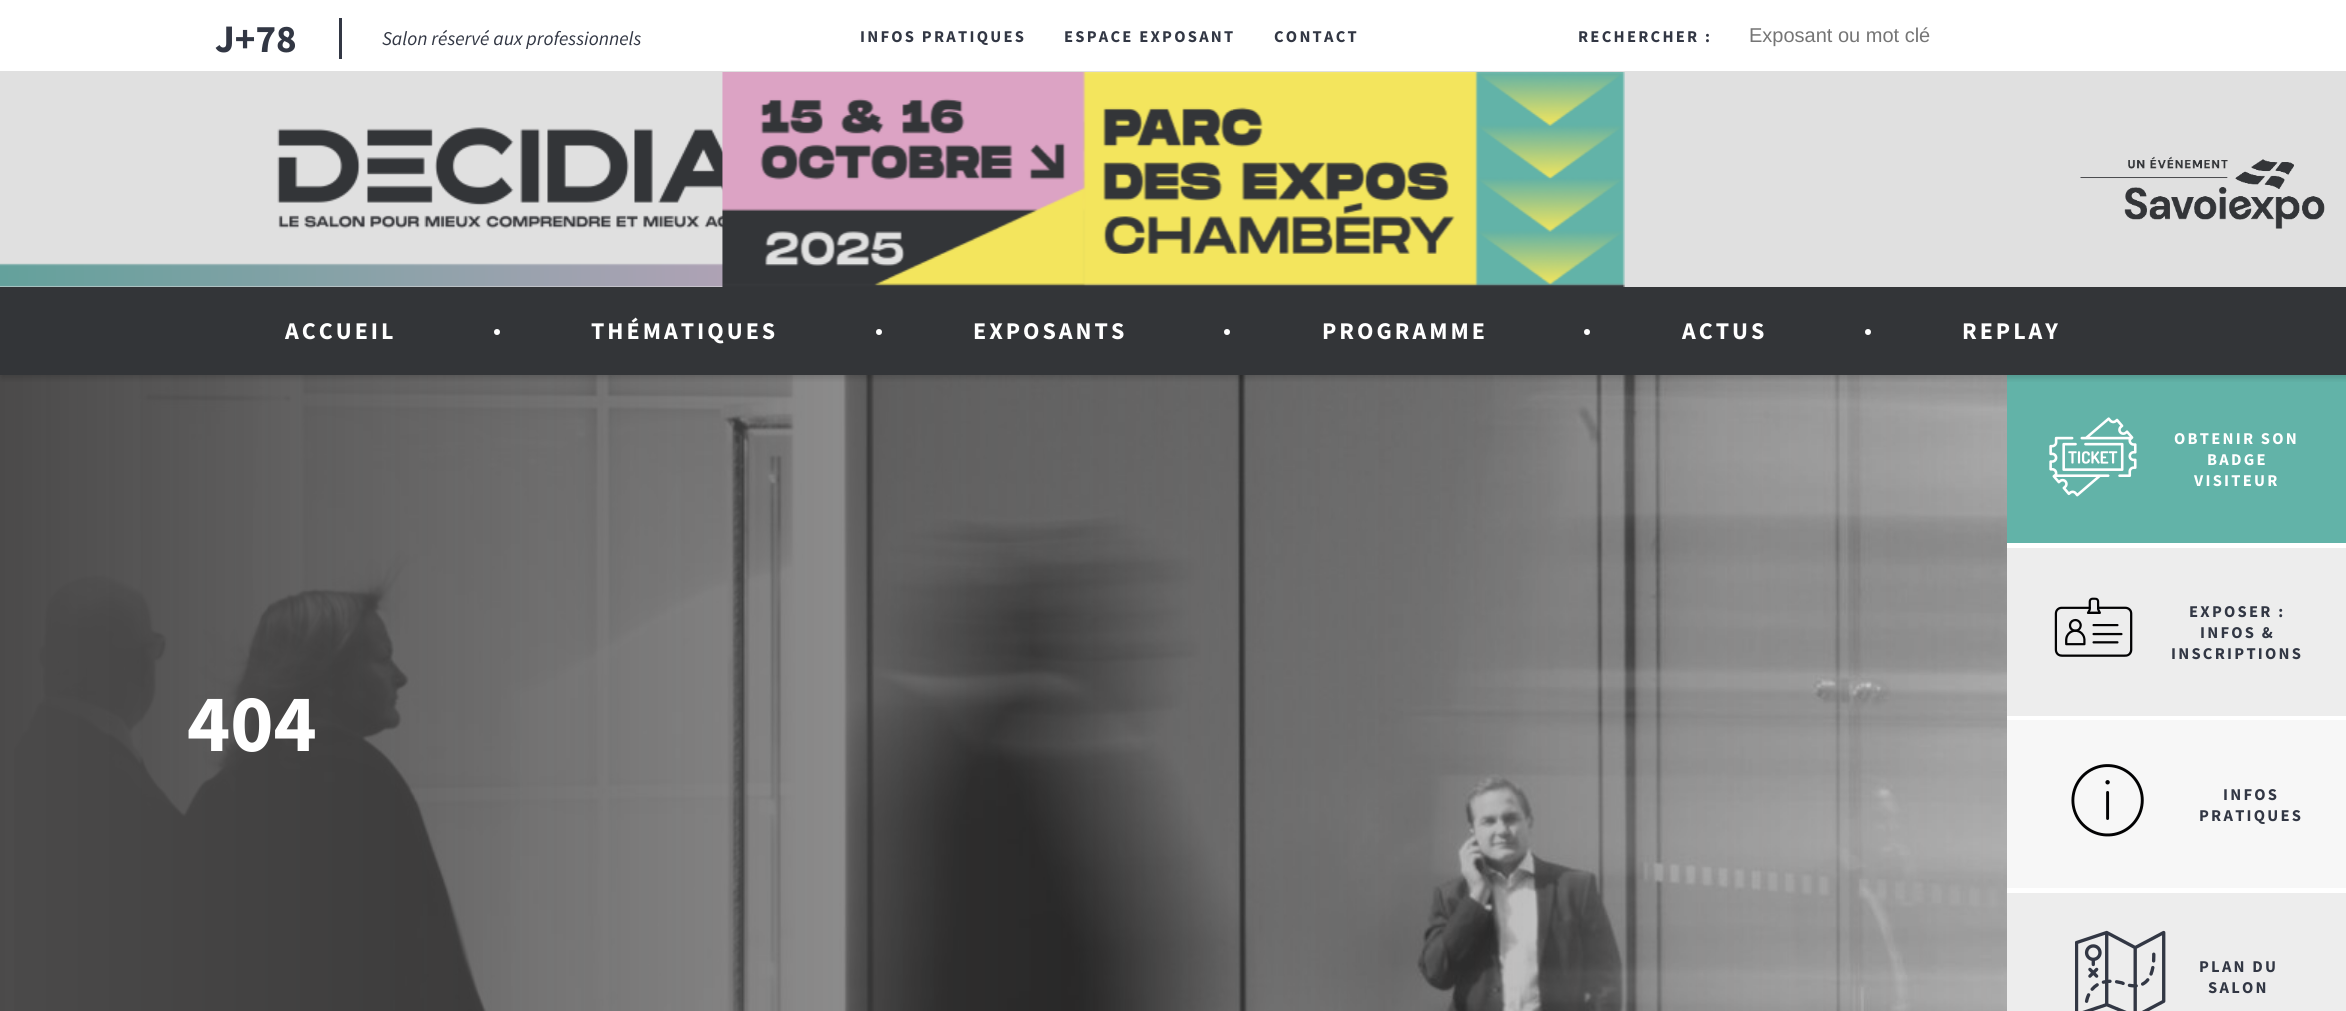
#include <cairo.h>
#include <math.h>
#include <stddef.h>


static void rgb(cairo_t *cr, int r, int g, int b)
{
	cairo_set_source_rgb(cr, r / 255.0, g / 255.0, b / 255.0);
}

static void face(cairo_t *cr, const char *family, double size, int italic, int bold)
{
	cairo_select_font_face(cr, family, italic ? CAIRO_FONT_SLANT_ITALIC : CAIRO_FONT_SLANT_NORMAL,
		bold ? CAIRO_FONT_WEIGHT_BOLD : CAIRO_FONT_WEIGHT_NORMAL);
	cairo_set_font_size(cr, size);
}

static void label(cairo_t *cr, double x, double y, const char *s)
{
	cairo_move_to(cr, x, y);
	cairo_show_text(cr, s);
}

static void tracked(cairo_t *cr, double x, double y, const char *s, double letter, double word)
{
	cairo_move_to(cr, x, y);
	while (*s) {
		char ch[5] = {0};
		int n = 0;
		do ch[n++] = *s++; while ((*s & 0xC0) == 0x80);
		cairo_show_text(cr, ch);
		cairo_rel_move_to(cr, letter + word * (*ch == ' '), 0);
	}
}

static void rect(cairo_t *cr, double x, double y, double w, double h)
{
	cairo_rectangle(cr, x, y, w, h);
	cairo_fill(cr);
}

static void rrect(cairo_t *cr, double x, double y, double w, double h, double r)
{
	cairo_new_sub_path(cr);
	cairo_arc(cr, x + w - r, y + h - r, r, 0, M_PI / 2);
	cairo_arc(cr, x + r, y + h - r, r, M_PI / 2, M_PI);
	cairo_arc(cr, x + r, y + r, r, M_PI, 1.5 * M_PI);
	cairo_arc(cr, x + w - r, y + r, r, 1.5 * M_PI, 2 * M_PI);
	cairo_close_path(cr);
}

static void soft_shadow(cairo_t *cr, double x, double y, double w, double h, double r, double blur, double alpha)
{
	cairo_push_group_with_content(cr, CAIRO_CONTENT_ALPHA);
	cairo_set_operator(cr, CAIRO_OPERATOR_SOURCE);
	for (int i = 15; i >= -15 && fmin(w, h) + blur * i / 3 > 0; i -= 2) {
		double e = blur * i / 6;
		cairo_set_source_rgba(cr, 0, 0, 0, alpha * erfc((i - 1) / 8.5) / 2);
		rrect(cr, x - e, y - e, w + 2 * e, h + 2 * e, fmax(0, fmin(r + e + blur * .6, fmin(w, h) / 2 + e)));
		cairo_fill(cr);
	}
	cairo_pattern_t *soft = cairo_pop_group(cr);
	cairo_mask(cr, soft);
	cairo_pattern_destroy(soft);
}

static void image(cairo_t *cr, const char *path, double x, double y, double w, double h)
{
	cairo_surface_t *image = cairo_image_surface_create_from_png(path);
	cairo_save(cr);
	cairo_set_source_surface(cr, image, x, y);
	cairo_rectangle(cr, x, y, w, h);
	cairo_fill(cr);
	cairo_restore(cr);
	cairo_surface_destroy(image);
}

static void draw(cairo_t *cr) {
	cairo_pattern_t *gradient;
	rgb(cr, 255, 255, 255);
	cairo_paint(cr);
	image(cr, "image4.png", 14, 375, 1993, 636);
	gradient = cairo_pattern_create_linear(2346, 720, 0, 720);
	cairo_pattern_add_color_stop_rgba(gradient, 0, 0.294, 0.29, 0.29, 0);
	cairo_pattern_add_color_stop_rgba(gradient, 1, 0.294, 0.29, 0.29, 1);
	cairo_set_source(cr, gradient);
	cairo_pattern_destroy(gradient);
	rect(cr, 0, 375, 2007, 636);
	rgb(cr, 98, 179, 168);
	rect(cr, 2007, 375, 339, 168);
	cairo_save(cr);
	cairo_rectangle(cr, 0, 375, 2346, 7);
	cairo_clip(cr);
	rgb(cr, 0, 0, 0);
	soft_shadow(cr, 2, 2, 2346, 375, 0, 4, 0.2);
	cairo_restore(cr);
	face(cr, "Source Sans Pro", 39, 0, 1);
	rgb(cr, 50, 55, 68);
	label(cr, 215, 52, "J+78");
	rect(cr, 339, 18, 3, 41);
	face(cr, "Source Sans Pro", 19.5, 1, 0);
	label(cr, 382, 45, "Salon réservé aux professionnels");
	face(cr, "Source Sans Pro", 16.5, 0, 1);
	tracked(cr, 860, 42, "INFOS PRATIQUES", 2.25, 0);
	tracked(cr, 1064, 42, "ESPACE EXPOSANT", 2.25, 0);
	tracked(cr, 1274, 42, "CONTACT", 2.25, 0);
	tracked(cr, 1578, 42, "RECHERCHER :", 2.25, 0);
	face(cr, "Liberation Sans", 20, 0, 0);
	rgb(cr, 117, 117, 117);
	label(cr, 1749, 42, "Exposant ou mot clé");
	rgb(cr, 224, 224, 224);
	rect(cr, 0, 71, 2346, 216);
	image(cr, "image0.png", 277, 127, 446, 102);
	image(cr, "image3.png", 0, 263, 723, 24);
	image(cr, "image1.png", 722, 72, 903, 215);
	image(cr, "image2.png", 2080, 156, 245, 73);
	rgb(cr, 51, 53, 56);
	rect(cr, 0, 287, 2346, 88);
	face(cr, "Source Sans Pro", 24, 0, 1);
	rgb(cr, 255, 255, 255);
	tracked(cr, 285, 339, "ACCUEIL", 3, 0);
	cairo_new_path(cr);
	cairo_arc(cr, 497, 332, 3, 0, 2 * M_PI);
	cairo_fill(cr);
	tracked(cr, 591, 339, "THÉMATIQUES", 3, 0);
	cairo_new_path(cr);
	cairo_arc(cr, 879, 332, 3, 0, 2 * M_PI);
	cairo_fill(cr);
	tracked(cr, 973, 339, "EXPOSANTS", 3, 0);
	cairo_new_path(cr);
	cairo_arc(cr, 1227, 332, 3, 0, 2 * M_PI);
	cairo_fill(cr);
	tracked(cr, 1322, 339, "PROGRAMME", 3, 0);
	cairo_new_path(cr);
	cairo_arc(cr, 1587, 332, 3, 0, 2 * M_PI);
	cairo_fill(cr);
	tracked(cr, 1682, 339, "ACTUS", 3, 0);
	cairo_new_path(cr);
	cairo_arc(cr, 1868, 332, 3, 0, 2 * M_PI);
	cairo_fill(cr);
	tracked(cr, 1962, 339, "REPLAY", 3, 0);
	image(cr, "image5.png", 2049, 417, 88, 80);
	face(cr, "Source Sans Pro", 16.5, 0, 1);
	tracked(cr, 2174, 444, "OBTENIR SON", 2.25, 0);
	tracked(cr, 2207, 465, "BADGE", 2.25, 0);
	tracked(cr, 2194, 486, "VISITEUR", 2.25, 0);
	rgb(cr, 237, 237, 237);
	rect(cr, 2007, 548, 339, 168);
	image(cr, "image6.png", 2054, 597, 79, 60);
	rgb(cr, 50, 55, 68);
	tracked(cr, 2189, 617, "EXPOSER :", 2.25, 0);
	tracked(cr, 2200, 638, "INFOS &", 2.25, 0);
	tracked(cr, 2171, 659, "INSCRIPTIONS", 2.25, 0);
	rgb(cr, 247, 247, 247);
	rect(cr, 2007, 720, 339, 168);
	image(cr, "image7.png", 2071, 764, 73, 73);
	rgb(cr, 50, 55, 68);
	tracked(cr, 2223, 800, "INFOS", 2.25, 0);
	tracked(cr, 2199, 821, "PRATIQUES", 2.25, 0);
	rgb(cr, 237, 237, 237);
	rect(cr, 2007, 893, 339, 118);
	image(cr, "image8.png", 2075, 930, 91, 81);
	rgb(cr, 50, 55, 68);
	tracked(cr, 2199, 972, "PLAN DU", 2.25, 0);
	tracked(cr, 2208, 993, "SALON", 2.25, 0);
	face(cr, "Source Sans Pro", 82, 0, 1);
	rgb(cr, 255, 255, 255);
	label(cr, 187, 751, "404");
}

int main(void) {
	cairo_surface_t *surface = cairo_image_surface_create(CAIRO_FORMAT_RGB24, 2346, 1011);
	cairo_t *cr = cairo_create(surface);
	cairo_font_options_t *options = cairo_font_options_create();
	cairo_font_options_set_hint_metrics(options, CAIRO_HINT_METRICS_OFF);
	cairo_font_options_set_hint_style(options, CAIRO_HINT_STYLE_NONE);
	cairo_set_font_options(cr, options);
	cairo_set_miter_limit(cr, 4);
	draw(cr);
	cairo_surface_write_to_png(surface, "render.png");
	cairo_font_options_destroy(options);
	cairo_destroy(cr);
	cairo_surface_destroy(surface);
	return 0;
}
